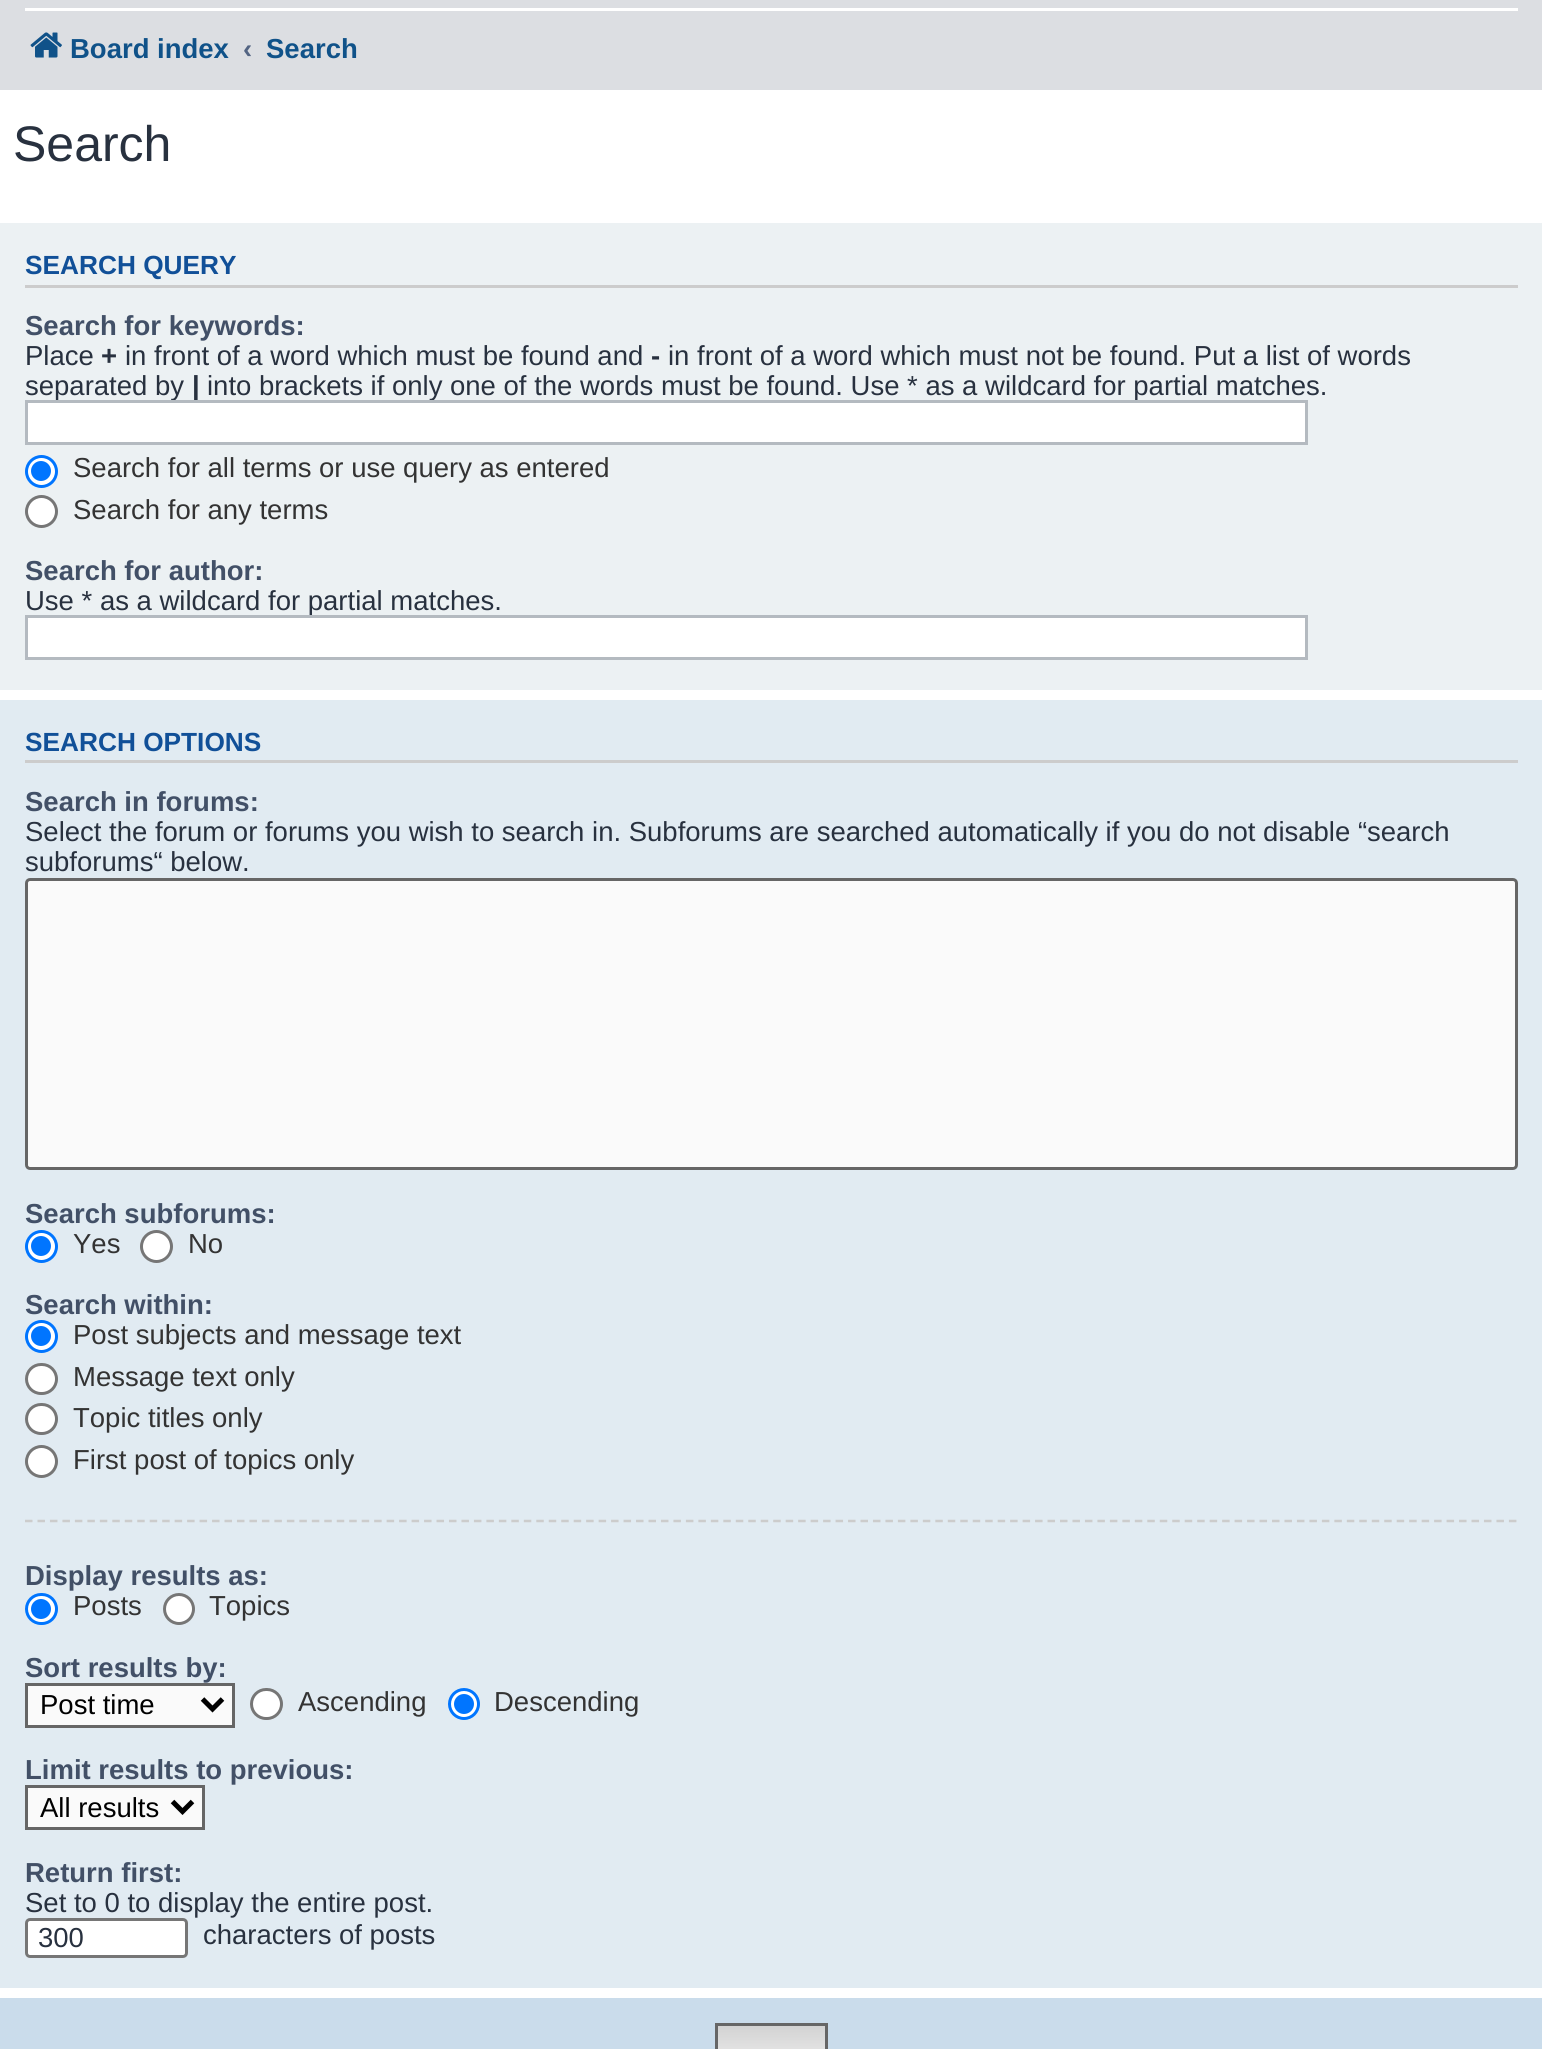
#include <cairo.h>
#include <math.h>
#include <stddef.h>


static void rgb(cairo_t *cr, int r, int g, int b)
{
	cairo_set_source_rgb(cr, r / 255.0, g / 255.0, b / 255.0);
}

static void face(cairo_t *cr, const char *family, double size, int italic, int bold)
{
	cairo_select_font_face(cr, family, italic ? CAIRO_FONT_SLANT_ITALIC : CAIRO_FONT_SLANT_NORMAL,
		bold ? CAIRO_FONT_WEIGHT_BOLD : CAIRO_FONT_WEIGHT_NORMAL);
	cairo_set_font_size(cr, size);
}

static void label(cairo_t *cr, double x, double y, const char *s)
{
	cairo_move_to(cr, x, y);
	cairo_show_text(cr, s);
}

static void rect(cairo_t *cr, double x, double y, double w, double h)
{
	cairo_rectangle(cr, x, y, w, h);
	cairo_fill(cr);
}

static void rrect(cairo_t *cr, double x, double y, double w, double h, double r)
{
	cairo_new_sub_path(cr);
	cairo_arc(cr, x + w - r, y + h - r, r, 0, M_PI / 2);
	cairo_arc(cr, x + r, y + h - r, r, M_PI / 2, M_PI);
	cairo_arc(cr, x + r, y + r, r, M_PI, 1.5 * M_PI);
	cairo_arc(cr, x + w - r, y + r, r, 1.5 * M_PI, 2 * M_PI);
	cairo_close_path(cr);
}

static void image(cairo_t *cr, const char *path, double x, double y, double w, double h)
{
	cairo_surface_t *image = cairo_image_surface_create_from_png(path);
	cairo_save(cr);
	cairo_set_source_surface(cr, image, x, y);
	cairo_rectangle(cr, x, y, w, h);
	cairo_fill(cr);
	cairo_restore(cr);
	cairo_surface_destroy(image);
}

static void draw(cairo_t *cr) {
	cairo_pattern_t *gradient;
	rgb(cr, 255, 255, 255);
	cairo_paint(cr);
	rgb(cr, 220, 222, 226);
	rect(cr, 0, 0, 1542, 90);
	rgb(cr, 255, 255, 255);
	rect(cr, 25, 8, 1493, 3);
	image(cr, "image0.png", 30, 32, 32, 26);
	face(cr, "Liberation Sans", 27.5, 0, 1);
	rgb(cr, 16, 82, 137);
	label(cr, 70, 58, "Board index");
	rgb(cr, 83, 100, 130);
	label(cr, 243, 58, "‹");
	rgb(cr, 16, 82, 137);
	label(cr, 266, 58, "Search");
	face(cr, "Liberation Sans", 50, 0, 0);
	rgb(cr, 40, 49, 63);
	label(cr, 13, 161, "Search");
	rgb(cr, 236, 241, 243);
	rect(cr, 0, 223, 1542, 467);
	rgb(cr, 204, 204, 204);
	rect(cr, 25, 285, 1493, 3);
	face(cr, "Liberation Sans", 26.25, 0, 1);
	rgb(cr, 17, 80, 152);
	label(cr, 25, 274, "SEARCH QUERY");
	face(cr, "Liberation Sans", 27.5, 0, 1);
	rgb(cr, 66, 80, 103);
	label(cr, 25, 335, "Search for keywords:");
	face(cr, "Liberation Sans", 27.5, 0, 0);
	rgb(cr, 40, 49, 63);
	label(cr, 25, 365, "Place");
	face(cr, "Liberation Sans", 27.5, 0, 1);
	label(cr, 101, 365, "+");
	face(cr, "Liberation Sans", 27.5, 0, 0);
	label(cr, 125, 365, "in front of a word which must be found and");
	face(cr, "Liberation Sans", 27.5, 0, 1);
	label(cr, 651, 365, "-");
	face(cr, "Liberation Sans", 27.5, 0, 0);
	label(cr, 668, 365, "in front of a word which must not be found. Put a list of words");
	label(cr, 25, 395, "separated by");
	face(cr, "Liberation Sans", 27.5, 0, 1);
	label(cr, 192, 395, "|");
	face(cr, "Liberation Sans", 27.5, 0, 0);
	label(cr, 207, 395, "into brackets if only one of the words must be found. Use * as a wildcard for partial matches.");
	rgb(cr, 255, 255, 255);
	cairo_rectangle(cr, 26.5, 401.5, 1280, 42);
	cairo_fill_preserve(cr);
	rgb(cr, 180, 186, 192);
	cairo_set_line_width(cr, 3);
	cairo_stroke(cr);
	rgb(cr, 255, 255, 255);
	cairo_arc(cr, 41.5, 471.5, 15, 0, 2 * M_PI);
	cairo_fill_preserve(cr);
	rgb(cr, 0, 117, 255);
	cairo_stroke(cr);
	cairo_arc(cr, 41, 471, 10, 0, 2 * M_PI);
	cairo_fill(cr);
	rgb(cr, 51, 51, 51);
	label(cr, 73, 477, "Search for all terms or use query as entered");
	rgb(cr, 255, 255, 255);
	cairo_new_path(cr);
	cairo_arc(cr, 41.5, 511.5, 15, 0, 2 * M_PI);
	cairo_fill_preserve(cr);
	rgb(cr, 118, 118, 118);
	cairo_stroke(cr);
	rgb(cr, 51, 51, 51);
	label(cr, 73, 519, "Search for any terms");
	face(cr, "Liberation Sans", 27.5, 0, 1);
	rgb(cr, 66, 80, 103);
	label(cr, 25, 580, "Search for author:");
	face(cr, "Liberation Sans", 27.5, 0, 0);
	rgb(cr, 40, 49, 63);
	label(cr, 25, 610, "Use * as a wildcard for partial matches.");
	rgb(cr, 255, 255, 255);
	cairo_rectangle(cr, 26.5, 616.5, 1280, 42);
	cairo_fill_preserve(cr);
	rgb(cr, 180, 186, 192);
	cairo_stroke(cr);
	rgb(cr, 225, 235, 242);
	rect(cr, 0, 700, 1542, 1288);
	rgb(cr, 204, 204, 204);
	rect(cr, 25, 760, 1493, 3);
	face(cr, "Liberation Sans", 26.25, 0, 1);
	rgb(cr, 17, 80, 152);
	label(cr, 25, 751, "SEARCH OPTIONS");
	face(cr, "Liberation Sans", 27.5, 0, 1);
	rgb(cr, 66, 80, 103);
	label(cr, 25, 811, "Search in forums:");
	face(cr, "Liberation Sans", 27.5, 0, 0);
	rgb(cr, 40, 49, 63);
	label(cr, 25, 841, "Select the forum or forums you wish to search in. Subforums are searched automatically if you do not disable “search");
	label(cr, 25, 871, "subforums“ below.");
	rgb(cr, 250, 250, 250);
	rrect(cr, 26.5, 879.5, 1490, 289, 3.5);
	cairo_fill_preserve(cr);
	rgb(cr, 102, 102, 102);
	cairo_stroke(cr);
	face(cr, "Liberation Sans", 27.5, 0, 1);
	rgb(cr, 66, 80, 103);
	label(cr, 25, 1223, "Search subforums:");
	rgb(cr, 255, 255, 255);
	cairo_new_path(cr);
	cairo_arc(cr, 41.5, 1246.5, 15, 0, 2 * M_PI);
	cairo_fill_preserve(cr);
	rgb(cr, 0, 117, 255);
	cairo_stroke(cr);
	cairo_arc(cr, 41, 1246, 10, 0, 2 * M_PI);
	cairo_fill(cr);
	face(cr, "Liberation Sans", 27.5, 0, 0);
	rgb(cr, 51, 51, 51);
	label(cr, 73, 1253, "Yes");
	rgb(cr, 255, 255, 255);
	cairo_new_path(cr);
	cairo_arc(cr, 156.5, 1246.5, 15, 0, 2 * M_PI);
	cairo_fill_preserve(cr);
	rgb(cr, 118, 118, 118);
	cairo_stroke(cr);
	rgb(cr, 51, 51, 51);
	label(cr, 188, 1253, "No");
	face(cr, "Liberation Sans", 27.5, 0, 1);
	rgb(cr, 66, 80, 103);
	label(cr, 25, 1314, "Search within:");
	rgb(cr, 255, 255, 255);
	cairo_new_path(cr);
	cairo_arc(cr, 41.5, 1336.5, 15, 0, 2 * M_PI);
	cairo_fill_preserve(cr);
	rgb(cr, 0, 117, 255);
	cairo_stroke(cr);
	cairo_arc(cr, 41, 1336, 10, 0, 2 * M_PI);
	cairo_fill(cr);
	face(cr, "Liberation Sans", 27.5, 0, 0);
	rgb(cr, 51, 51, 51);
	label(cr, 73, 1344, "Post subjects and message text");
	rgb(cr, 255, 255, 255);
	rrect(cr, 26.5, 1364.5, 30, 29, 14.5);
	cairo_fill_preserve(cr);
	rgb(cr, 118, 118, 118);
	cairo_stroke(cr);
	rgb(cr, 51, 51, 51);
	label(cr, 73, 1386, "Message text only");
	rgb(cr, 255, 255, 255);
	rrect(cr, 26.5, 1404.5, 30, 29, 14.5);
	cairo_fill_preserve(cr);
	rgb(cr, 118, 118, 118);
	cairo_stroke(cr);
	rgb(cr, 51, 51, 51);
	label(cr, 73, 1427, "Topic titles only");
	rgb(cr, 255, 255, 255);
	cairo_new_path(cr);
	cairo_arc(cr, 41.5, 1461.5, 15, 0, 2 * M_PI);
	cairo_fill_preserve(cr);
	rgb(cr, 118, 118, 118);
	cairo_stroke(cr);
	rgb(cr, 51, 51, 51);
	label(cr, 73, 1469, "First post of topics only");
	cairo_new_path(cr);
	cairo_move_to(cr, 25, 1521);
	cairo_line_to(cr, 1517.5, 1521);
	rgb(cr, 204, 204, 204);
	cairo_set_line_width(cr, 2.5);
	cairo_set_dash(cr, (double[]){7.5, 4.97}, 2, 0);
	cairo_stroke(cr);
	face(cr, "Liberation Sans", 27.5, 0, 1);
	rgb(cr, 66, 80, 103);
	label(cr, 25, 1585, "Display results as:");
	rgb(cr, 255, 255, 255);
	rrect(cr, 26.5, 1594.5, 30, 29, 14.5);
	cairo_fill_preserve(cr);
	rgb(cr, 0, 117, 255);
	cairo_set_line_width(cr, 3);
	cairo_set_dash(cr, NULL, 0, 0);
	cairo_stroke(cr);
	cairo_arc(cr, 41, 1609, 10, 0, 2 * M_PI);
	cairo_fill(cr);
	face(cr, "Liberation Sans", 27.5, 0, 0);
	rgb(cr, 51, 51, 51);
	label(cr, 73, 1615, "Posts");
	rgb(cr, 255, 255, 255);
	cairo_new_path(cr);
	cairo_arc(cr, 179, 1609, 14.5, 0, 2 * M_PI);
	cairo_fill_preserve(cr);
	rgb(cr, 118, 118, 118);
	cairo_stroke(cr);
	rgb(cr, 51, 51, 51);
	label(cr, 209, 1615, "Topics");
	face(cr, "Liberation Sans", 27.5, 0, 1);
	rgb(cr, 66, 80, 103);
	label(cr, 25, 1677, "Sort results by:");
	rgb(cr, 250, 250, 250);
	cairo_rectangle(cr, 26.5, 1684.5, 207, 42);
	cairo_fill_preserve(cr);
	rgb(cr, 102, 102, 102);
	cairo_stroke(cr);
	cairo_new_path(cr);
	cairo_move_to(cr, 202.5, 1699);
	cairo_line_to(cr, 212.5, 1709);
	cairo_line_to(cr, 222.5, 1699);
	rgb(cr, 0, 0, 0);
	cairo_set_line_width(cr, 5);
	cairo_stroke(cr);
	face(cr, "Liberation Sans", 27.5, 0, 0);
	label(cr, 40, 1714, "Post time");
	rgb(cr, 255, 255, 255);
	rrect(cr, 251.5, 1689.5, 30, 29, 14.5);
	cairo_fill_preserve(cr);
	rgb(cr, 118, 118, 118);
	cairo_set_line_width(cr, 3);
	cairo_stroke(cr);
	rgb(cr, 51, 51, 51);
	label(cr, 298, 1711, "Ascending");
	rgb(cr, 255, 255, 255);
	cairo_new_path(cr);
	cairo_arc(cr, 464, 1704, 14.5, 0, 2 * M_PI);
	cairo_fill_preserve(cr);
	rgb(cr, 0, 117, 255);
	cairo_stroke(cr);
	cairo_arc(cr, 464, 1704, 10, 0, 2 * M_PI);
	cairo_fill(cr);
	rgb(cr, 51, 51, 51);
	label(cr, 494, 1711, "Descending");
	face(cr, "Liberation Sans", 27.5, 0, 1);
	rgb(cr, 66, 80, 103);
	label(cr, 25, 1779, "Limit results to previous:");
	rgb(cr, 250, 250, 250);
	cairo_rectangle(cr, 26.5, 1786.5, 177, 42);
	cairo_fill_preserve(cr);
	rgb(cr, 102, 102, 102);
	cairo_stroke(cr);
	cairo_new_path(cr);
	cairo_move_to(cr, 172.5, 1801.5);
	cairo_line_to(cr, 182.5, 1811.5);
	cairo_line_to(cr, 192.5, 1801.5);
	rgb(cr, 0, 0, 0);
	cairo_set_line_width(cr, 5);
	cairo_stroke(cr);
	face(cr, "Liberation Sans", 27.5, 0, 0);
	label(cr, 40, 1817, "All results");
	face(cr, "Liberation Sans", 27.5, 0, 1);
	rgb(cr, 66, 80, 103);
	label(cr, 25, 1882, "Return first:");
	face(cr, "Liberation Sans", 27.5, 0, 0);
	rgb(cr, 40, 49, 63);
	label(cr, 25, 1912, "Set to 0 to display the entire post.");
	rgb(cr, 255, 255, 255);
	rrect(cr, 26.5, 1919.5, 160, 37, 3.5);
	cairo_fill_preserve(cr);
	rgb(cr, 118, 118, 118);
	cairo_set_line_width(cr, 3);
	cairo_stroke(cr);
	rgb(cr, 40, 49, 63);
	label(cr, 38, 1947, "300");
	label(cr, 203, 1944, "characters of posts");
	rgb(cr, 202, 220, 235);
	rect(cr, 0, 1998, 1542, 51);
	gradient = cairo_pattern_create_linear(771, 2025, 771, 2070);
	cairo_pattern_add_color_stop_rgba(gradient, 0, 0.824, 0.824, 0.824, 1);
	cairo_pattern_add_color_stop_rgba(gradient, 1, 0.937, 0.937, 0.937, 1);
	cairo_set_source(cr, gradient);
	cairo_pattern_destroy(gradient);
	rect(cr, 718, 2026, 107, 23);
	cairo_rectangle(cr, 716.5, 2024.5, 110, 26);
	rgb(cr, 102, 102, 102);
	cairo_stroke(cr);
}

int main(void) {
	cairo_surface_t *surface = cairo_image_surface_create(CAIRO_FORMAT_RGB24, 1542, 2049);
	cairo_t *cr = cairo_create(surface);
	cairo_font_options_t *options = cairo_font_options_create();
	cairo_font_options_set_hint_metrics(options, CAIRO_HINT_METRICS_OFF);
	cairo_font_options_set_hint_style(options, CAIRO_HINT_STYLE_NONE);
	cairo_set_font_options(cr, options);
	cairo_set_miter_limit(cr, 4);
	draw(cr);
	cairo_surface_write_to_png(surface, "render.png");
	cairo_font_options_destroy(options);
	cairo_destroy(cr);
	cairo_surface_destroy(surface);
	return 0;
}
